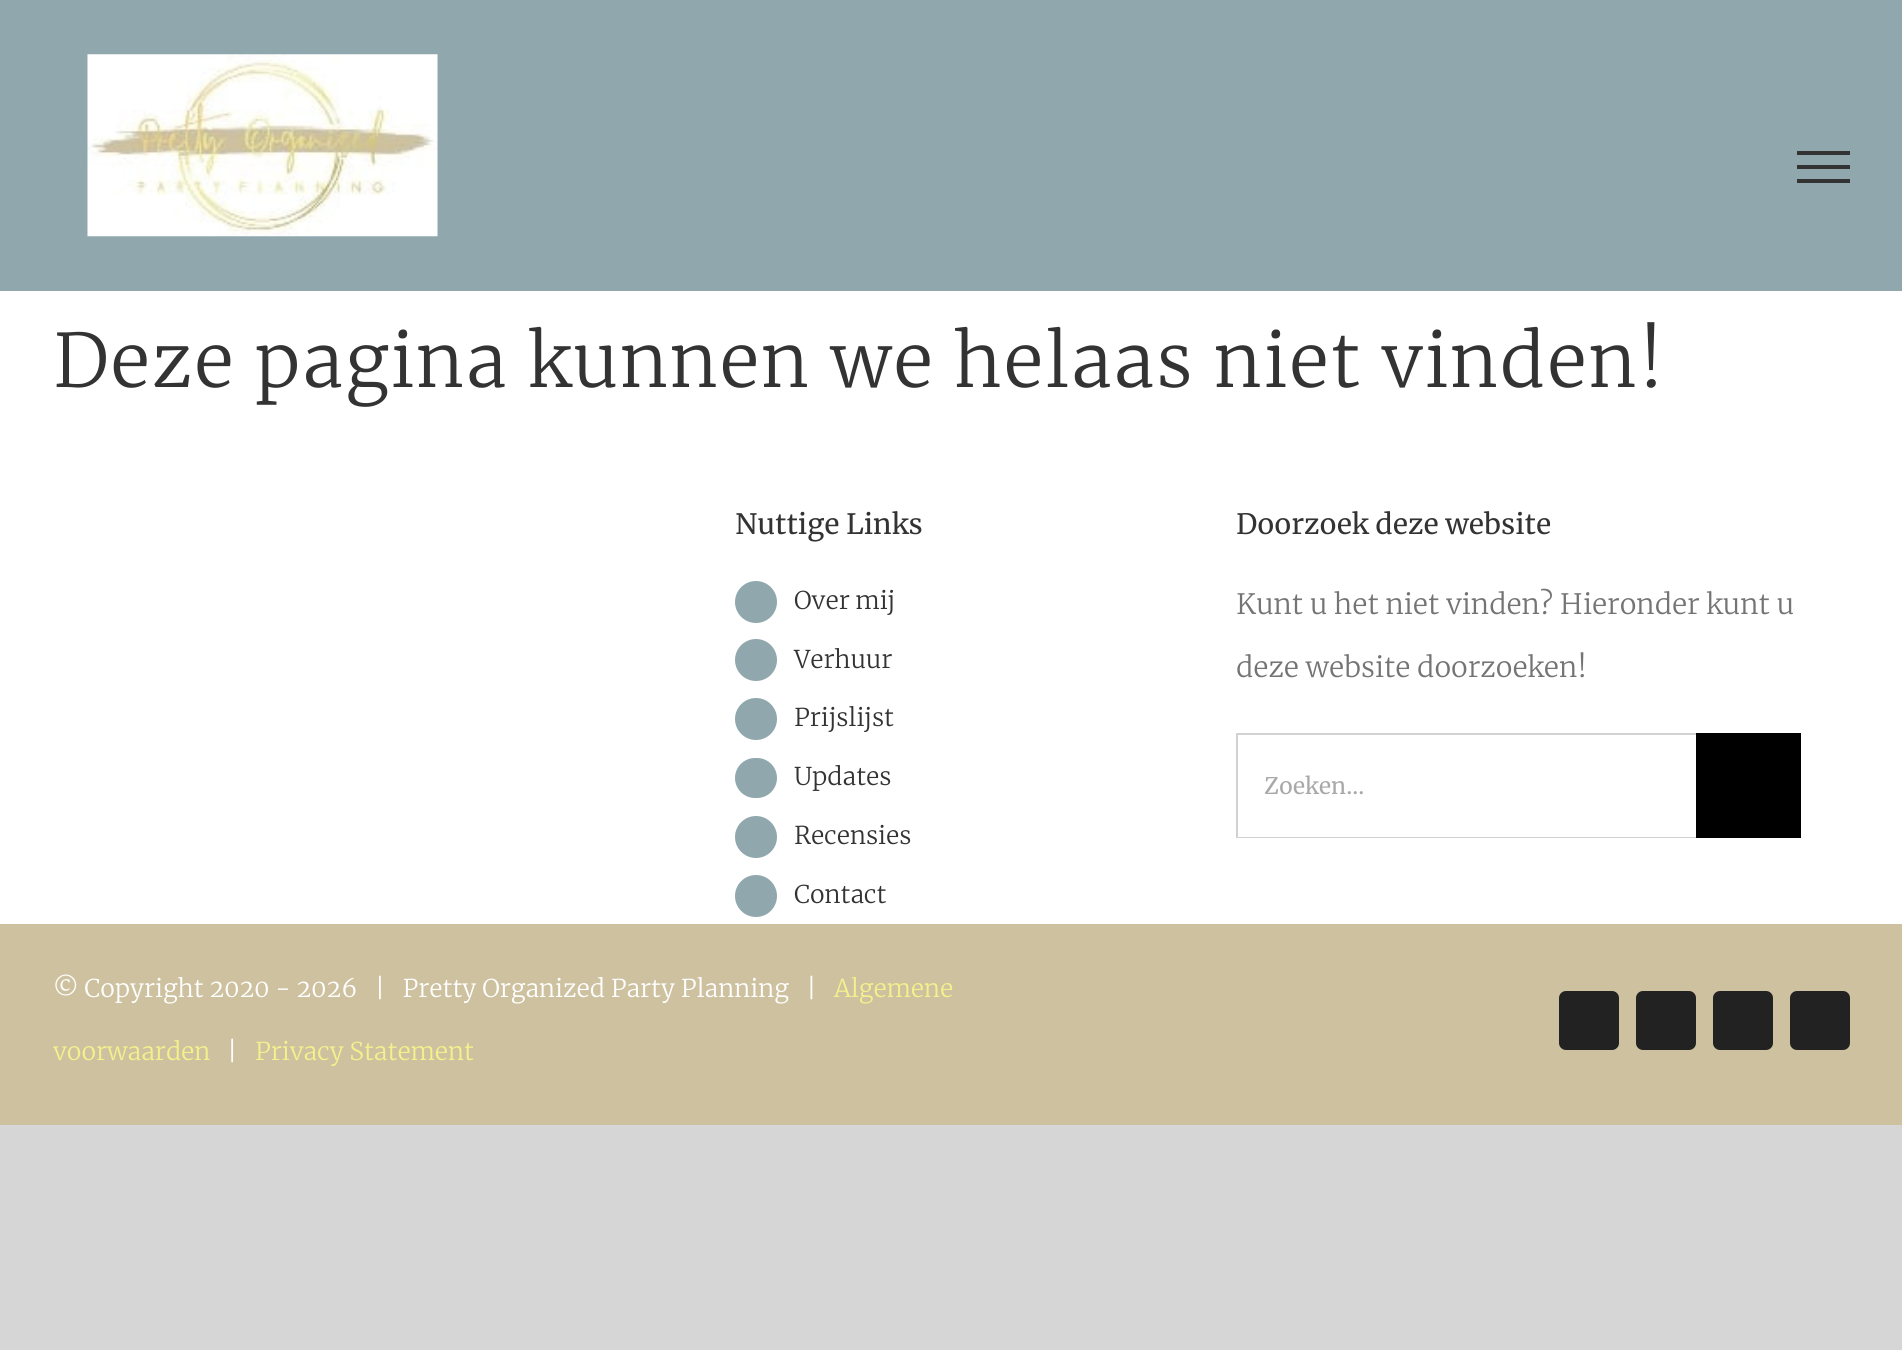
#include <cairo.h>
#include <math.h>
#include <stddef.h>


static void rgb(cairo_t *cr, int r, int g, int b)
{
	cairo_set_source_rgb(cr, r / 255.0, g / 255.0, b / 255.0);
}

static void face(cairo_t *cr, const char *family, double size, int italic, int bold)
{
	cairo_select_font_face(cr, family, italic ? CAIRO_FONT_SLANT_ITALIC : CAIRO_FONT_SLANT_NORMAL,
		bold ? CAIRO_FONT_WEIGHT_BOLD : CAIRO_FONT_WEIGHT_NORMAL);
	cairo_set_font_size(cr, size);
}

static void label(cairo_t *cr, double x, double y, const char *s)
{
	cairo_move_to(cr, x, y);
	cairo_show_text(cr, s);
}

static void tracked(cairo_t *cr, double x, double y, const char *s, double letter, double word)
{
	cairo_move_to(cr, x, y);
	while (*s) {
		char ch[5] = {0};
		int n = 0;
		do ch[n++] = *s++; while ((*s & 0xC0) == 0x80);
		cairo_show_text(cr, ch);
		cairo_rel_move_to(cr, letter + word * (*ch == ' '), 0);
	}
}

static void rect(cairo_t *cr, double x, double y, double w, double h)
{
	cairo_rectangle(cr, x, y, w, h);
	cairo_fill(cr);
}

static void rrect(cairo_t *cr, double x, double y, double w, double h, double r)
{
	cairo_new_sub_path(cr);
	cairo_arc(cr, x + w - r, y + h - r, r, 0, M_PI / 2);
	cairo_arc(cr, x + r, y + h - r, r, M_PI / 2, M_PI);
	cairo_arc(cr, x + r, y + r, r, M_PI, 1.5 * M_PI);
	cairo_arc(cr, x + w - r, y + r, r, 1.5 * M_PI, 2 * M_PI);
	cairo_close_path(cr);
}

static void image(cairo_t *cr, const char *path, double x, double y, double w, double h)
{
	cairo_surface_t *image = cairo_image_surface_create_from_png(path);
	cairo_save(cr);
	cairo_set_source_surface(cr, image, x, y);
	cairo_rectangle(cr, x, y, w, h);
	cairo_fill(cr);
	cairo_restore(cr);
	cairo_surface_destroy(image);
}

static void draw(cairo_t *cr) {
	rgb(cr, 215, 214, 214);
	cairo_paint(cr);
	rgb(cr, 255, 255, 255);
	rect(cr, 0, 291, 1902, 633);
	rgb(cr, 144, 168, 173);
	rect(cr, 0, 0, 1902, 291);
	image(cr, "image0.png", 87, 54, 351, 183);
	rgb(cr, 51, 51, 51);
	rect(cr, 1797, 151, 53, 4);
	rect(cr, 1797, 165, 53, 4);
	rect(cr, 1797, 179, 53, 4);
	face(cr, "Merriweather Light", 73.5, 0, 0);
	tracked(cr, 53, 387, "Deze pagina kunnen we helaas niet vinden!", 1.75, 0);
	face(cr, "Merriweather", 28, 0, 0);
	label(cr, 735, 534, "Nuttige Links");
	rgb(cr, 144, 168, 173);
	cairo_new_path(cr);
	cairo_arc(cr, 756, 602, 21, 0, 2 * M_PI);
	cairo_fill(cr);
	face(cr, "Merriweather Light", 24.5, 0, 0);
	rgb(cr, 51, 51, 51);
	label(cr, 794, 609, "Over mij");
	rgb(cr, 144, 168, 173);
	cairo_new_path(cr);
	cairo_arc(cr, 756, 660, 21, 0, 2 * M_PI);
	cairo_fill(cr);
	rgb(cr, 51, 51, 51);
	label(cr, 794, 668, "Verhuur");
	rgb(cr, 144, 168, 173);
	cairo_new_path(cr);
	cairo_arc(cr, 756, 719, 21, 0, 2 * M_PI);
	cairo_fill(cr);
	rgb(cr, 51, 51, 51);
	label(cr, 794, 726, "Prijslijst");
	rgb(cr, 144, 168, 173);
	rrect(cr, 735, 758, 42, 40, 20);
	cairo_fill(cr);
	rgb(cr, 51, 51, 51);
	label(cr, 794, 785, "Updates");
	rgb(cr, 144, 168, 173);
	cairo_new_path(cr);
	cairo_arc(cr, 756, 837, 21, 0, 2 * M_PI);
	cairo_fill(cr);
	rgb(cr, 51, 51, 51);
	label(cr, 794, 844, "Recensies");
	rgb(cr, 144, 168, 173);
	cairo_new_path(cr);
	cairo_arc(cr, 756, 896, 21, 0, 2 * M_PI);
	cairo_fill(cr);
	rgb(cr, 51, 51, 51);
	label(cr, 794, 903, "Contact");
	face(cr, "Merriweather", 28, 0, 0);
	label(cr, 1236, 534, "Doorzoek deze website");
	face(cr, "Merriweather Light", 28, 0, 0);
	rgb(cr, 116, 116, 116);
	label(cr, 1236, 614, "Kunt u het niet vinden? Hieronder kunt u");
	label(cr, 1236, 677, "deze website doorzoeken!");
	rgb(cr, 210, 210, 210);
	rect(cr, 1236, 733, 460, 2);
	rect(cr, 1236, 837, 460, 1);
	rect(cr, 1236, 733, 2, 105);
	face(cr, "Merriweather", 22.75, 0, 0);
	rgb(cr, 170, 169, 169);
	label(cr, 1264, 794, "Zoeken...");
	rgb(cr, 0, 0, 0);
	rect(cr, 1696, 733, 105, 105);
	rgb(cr, 206, 193, 159);
	rect(cr, 0, 924, 1902, 201);
	face(cr, "Merriweather Light", 24.5, 0, 0);
	rgb(cr, 255, 255, 255);
	label(cr, 53, 997, "© Copyright 2020 - 2026   |   Pretty Organized Party Planning   |");
	rgb(cr, 244, 241, 141);
	label(cr, 834, 997, "Algemene");
	label(cr, 53, 1060, "voorwaarden");
	rgb(cr, 255, 255, 255);
	label(cr, 227, 1060, "|");
	rgb(cr, 244, 241, 141);
	label(cr, 255, 1060, "Privacy Statement");
	rgb(cr, 34, 34, 34);
	rrect(cr, 1560, 992, 58, 57, 6);
	cairo_fill_preserve(cr);
	cairo_stroke(cr);
	rrect(cr, 1637, 992, 58, 57, 6);
	cairo_fill_preserve(cr);
	cairo_stroke(cr);
	rrect(cr, 1714, 992, 58, 57, 6);
	cairo_fill_preserve(cr);
	cairo_stroke(cr);
	rrect(cr, 1791, 992, 58, 57, 6);
	cairo_fill_preserve(cr);
	cairo_stroke(cr);
}

int main(void) {
	cairo_surface_t *surface = cairo_image_surface_create(CAIRO_FORMAT_RGB24, 1902, 1350);
	cairo_t *cr = cairo_create(surface);
	cairo_font_options_t *options = cairo_font_options_create();
	cairo_font_options_set_hint_metrics(options, CAIRO_HINT_METRICS_OFF);
	cairo_font_options_set_hint_style(options, CAIRO_HINT_STYLE_NONE);
	cairo_set_font_options(cr, options);
	cairo_set_miter_limit(cr, 4);
	draw(cr);
	cairo_surface_write_to_png(surface, "render.png");
	cairo_font_options_destroy(options);
	cairo_destroy(cr);
	cairo_surface_destroy(surface);
	return 0;
}
